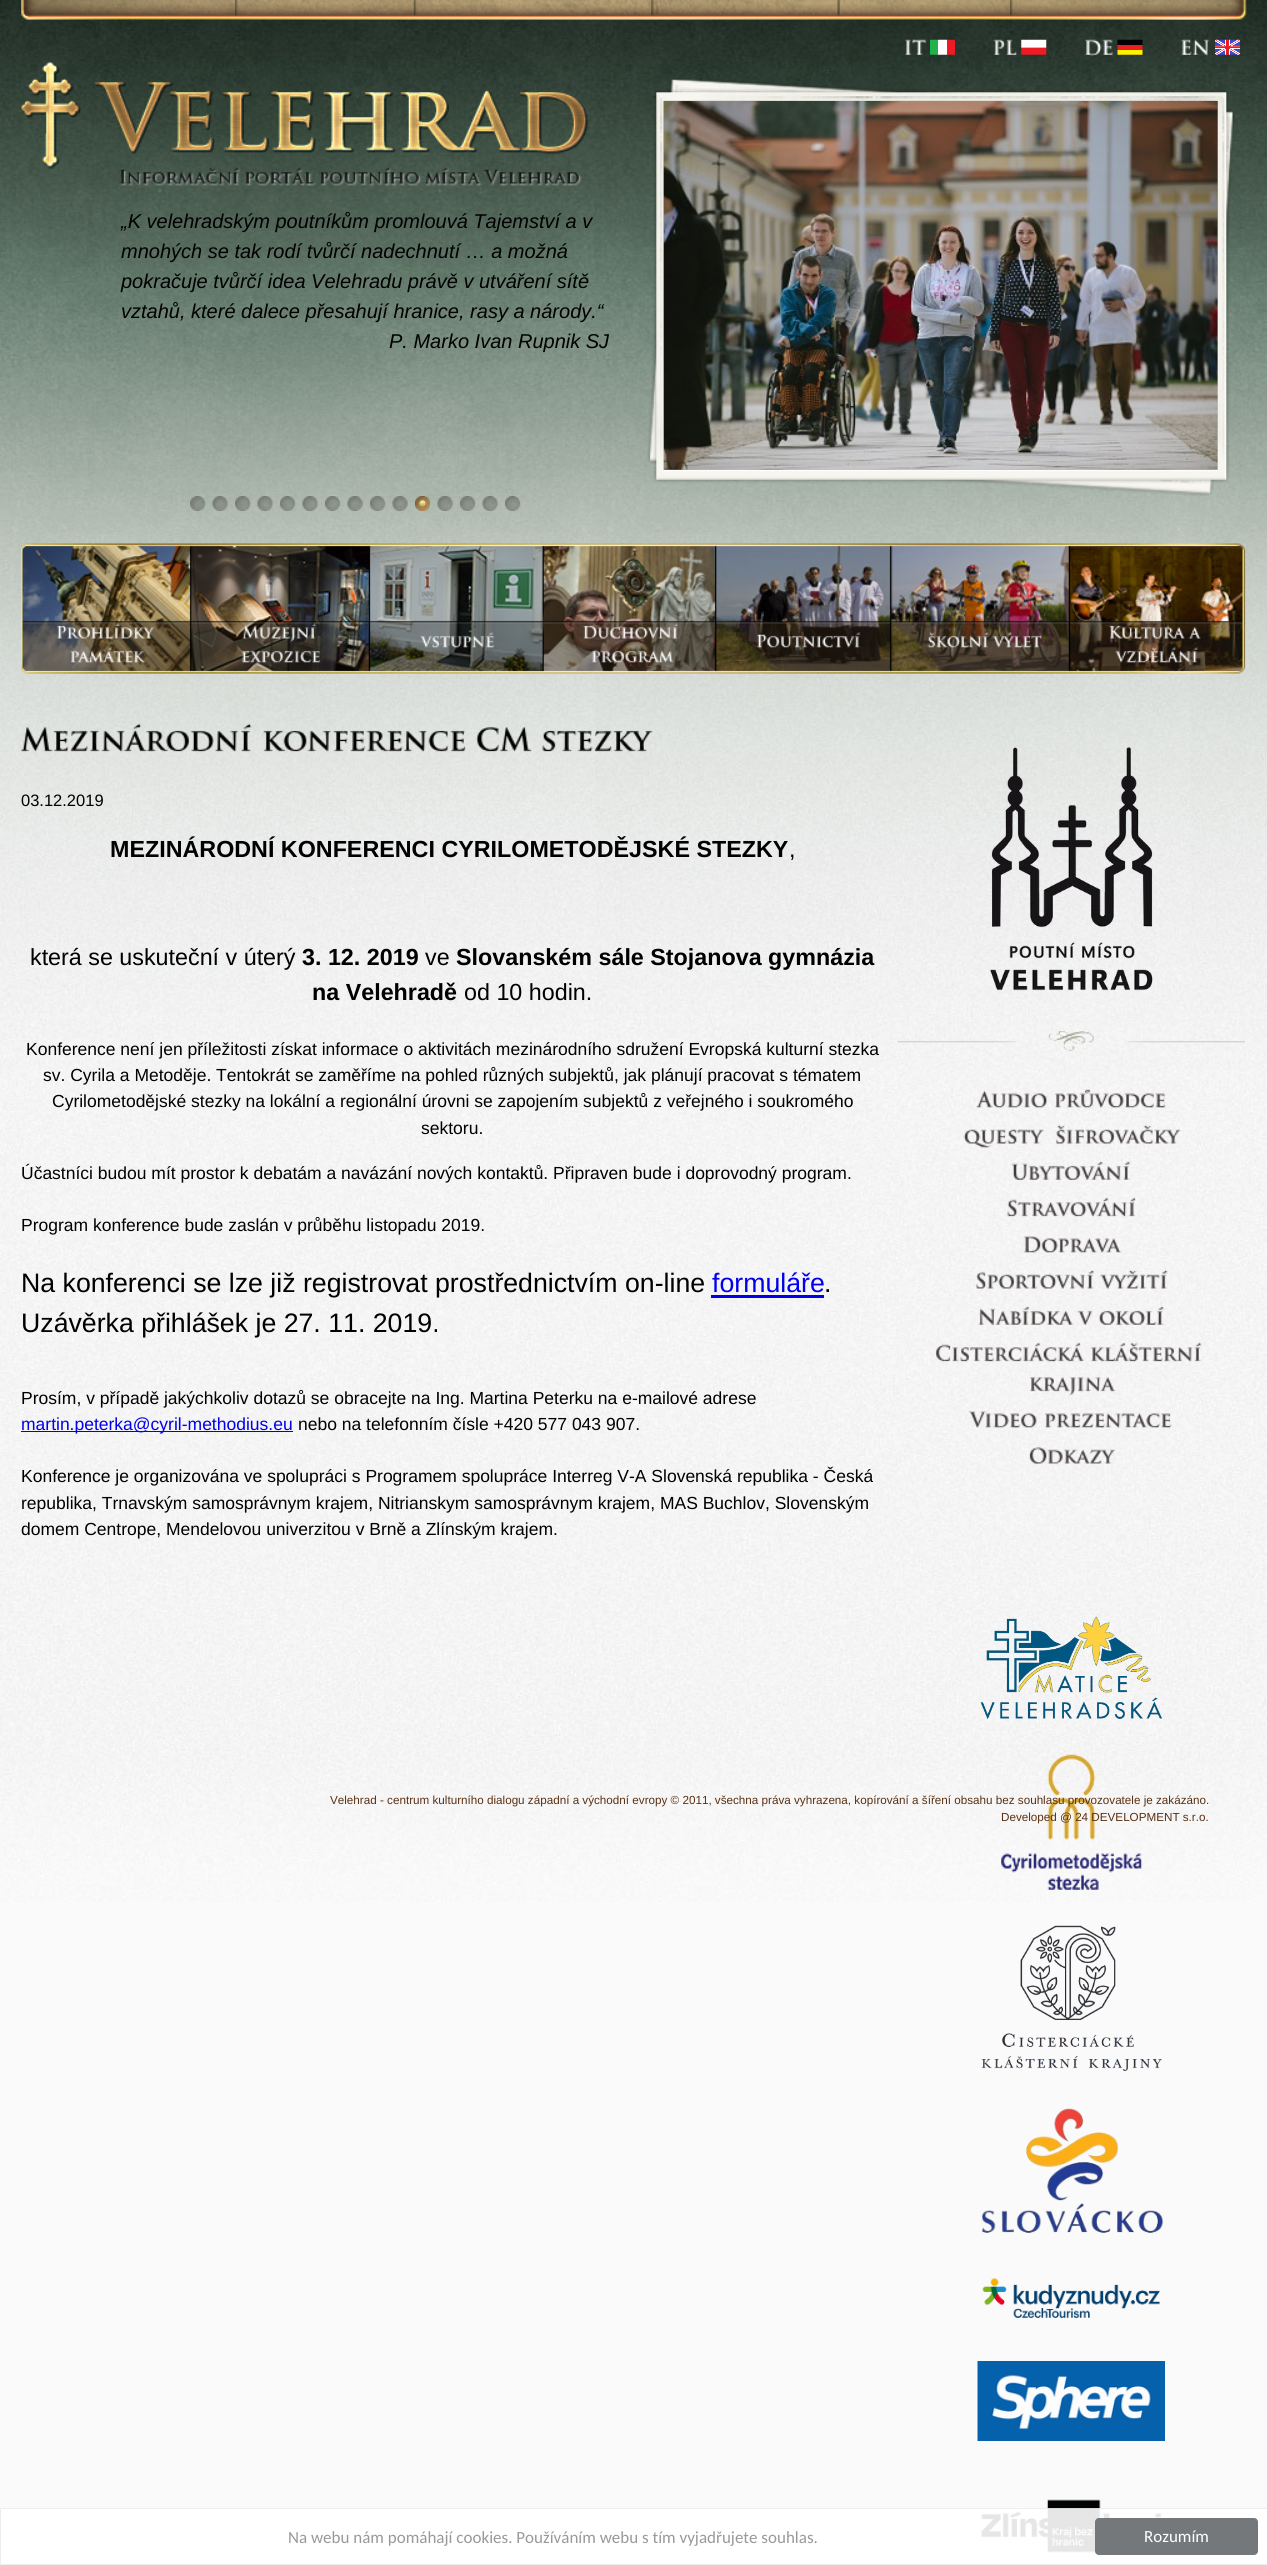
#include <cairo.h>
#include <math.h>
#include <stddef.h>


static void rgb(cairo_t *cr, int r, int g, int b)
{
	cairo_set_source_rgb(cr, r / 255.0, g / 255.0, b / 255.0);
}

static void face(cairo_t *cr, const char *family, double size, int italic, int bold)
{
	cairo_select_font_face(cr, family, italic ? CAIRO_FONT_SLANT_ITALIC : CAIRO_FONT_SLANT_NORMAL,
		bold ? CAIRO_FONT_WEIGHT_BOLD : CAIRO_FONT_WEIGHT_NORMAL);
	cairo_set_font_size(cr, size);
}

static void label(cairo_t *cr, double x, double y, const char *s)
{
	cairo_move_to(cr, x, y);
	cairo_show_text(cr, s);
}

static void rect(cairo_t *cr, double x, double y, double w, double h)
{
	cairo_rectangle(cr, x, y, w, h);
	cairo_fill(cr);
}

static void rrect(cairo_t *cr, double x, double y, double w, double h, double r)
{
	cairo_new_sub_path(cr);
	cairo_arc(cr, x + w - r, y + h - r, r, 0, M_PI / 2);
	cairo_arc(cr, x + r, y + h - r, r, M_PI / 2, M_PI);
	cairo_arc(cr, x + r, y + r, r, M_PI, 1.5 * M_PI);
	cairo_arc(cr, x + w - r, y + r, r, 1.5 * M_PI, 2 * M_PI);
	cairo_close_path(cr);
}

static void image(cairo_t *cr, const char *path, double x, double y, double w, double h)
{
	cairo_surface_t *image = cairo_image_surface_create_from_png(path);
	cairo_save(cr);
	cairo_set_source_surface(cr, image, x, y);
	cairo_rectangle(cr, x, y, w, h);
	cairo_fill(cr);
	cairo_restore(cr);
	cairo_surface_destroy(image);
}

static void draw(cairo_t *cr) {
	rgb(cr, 250, 250, 250);
	cairo_paint(cr);
	image(cr, "image0.png", 0, 0, 1267, 1902);
	image(cr, "image1.png", 21, 0, 1226, 20);
	image(cr, "image2.png", 235, 0, 3, 16);
	image(cr, "image3.png", 413, 0, 4, 16);
	image(cr, "image4.png", 651, 0, 3, 16);
	image(cr, "image5.png", 837, 0, 3, 16);
	image(cr, "image6.png", 1010, 0, 3, 16);
	image(cr, "image7.png", 905, 39, 22, 16);
	image(cr, "image8.png", 930, 39, 25, 16);
	image(cr, "image9.png", 993, 39, 24, 16);
	image(cr, "image10.png", 1021, 39, 26, 16);
	image(cr, "image11.png", 1085, 39, 28, 17);
	image(cr, "image12.png", 1117, 39, 26, 16);
	image(cr, "image13.png", 1181, 39, 28, 17);
	image(cr, "image14.png", 1215, 39, 25, 16);
	image(cr, "image15.png", 21, 62, 567, 124);
	image(cr, "image16.png", 647, 78, 588, 418);
	image(cr, "image17.png", 663, 101, 555, 369);
	face(cr, "Liberation Sans", 20, 1, 0);
	rgb(cr, 0, 0, 0);
	label(cr, 121, 228, "„K velehradským poutníkům promlouvá Tajemství a v");
	label(cr, 121, 258, "mnohých se tak rodí tvůrčí nadechnutí … a možná");
	label(cr, 121, 288, "pokračuje tvůrčí idea Velehradu právě v utváření sítě");
	label(cr, 121, 318, "vztahů, které dalece přesahují hranice, rasy a národy.“");
	label(cr, 389, 348, "P. Marko Ivan Rupnik SJ");
	image(cr, "image18.png", 190, 496, 16, 15);
	image(cr, "image19.png", 212, 496, 16, 15);
	image(cr, "image20.png", 235, 496, 16, 15);
	image(cr, "image21.png", 257, 496, 16, 15);
	image(cr, "image22.png", 280, 496, 16, 15);
	image(cr, "image23.png", 302, 496, 16, 15);
	image(cr, "image24.png", 325, 496, 16, 15);
	image(cr, "image25.png", 347, 496, 16, 15);
	image(cr, "image26.png", 370, 496, 16, 15);
	image(cr, "image27.png", 392, 496, 16, 15);
	image(cr, "image28.png", 415, 496, 15, 15);
	image(cr, "image29.png", 437, 496, 16, 15);
	image(cr, "image30.png", 460, 496, 16, 15);
	image(cr, "image31.png", 482, 496, 16, 15);
	image(cr, "image32.png", 505, 496, 16, 15);
	image(cr, "image33.png", 21, 543, 1225, 131);
	image(cr, "image34.png", 56, 623, 98, 16);
	image(cr, "image35.png", 70, 647, 76, 16);
	image(cr, "image36.png", 242, 623, 75, 20);
	image(cr, "image37.png", 241, 650, 80, 13);
	image(cr, "image38.png", 420, 632, 74, 16);
	image(cr, "image39.png", 582, 623, 96, 16);
	image(cr, "image40.png", 591, 650, 83, 13);
	image(cr, "image41.png", 756, 632, 105, 16);
	image(cr, "image42.png", 927, 632, 62, 16);
	image(cr, "image43.png", 992, 632, 50, 16);
	image(cr, "image44.png", 1109, 625, 76, 14);
	image(cr, "image45.png", 1188, 627, 13, 12);
	image(cr, "image46.png", 1115, 647, 83, 16);
	image(cr, "image47.png", 21, 723, 231, 29);
	image(cr, "image48.png", 263, 730, 203, 22);
	image(cr, "image49.png", 476, 727, 56, 25);
	image(cr, "image50.png", 542, 730, 111, 22);
	face(cr, "Liberation Sans", 16.5, 0, 0);
	label(cr, 21, 806, "03.12.2019");
	face(cr, "Liberation Sans", 23.3, 0, 1);
	label(cr, 110, 857, "MEZINÁRODNÍ KONFERENCI CYRILOMETODĚJSKÉ STEZKY");
	face(cr, "Liberation Sans", 23.3, 0, 0);
	label(cr, 789, 857, ",");
	label(cr, 30, 965, "která se uskuteční v úterý");
	face(cr, "Liberation Sans", 23.3, 0, 1);
	label(cr, 302, 965, "3. 12. 2019");
	face(cr, "Liberation Sans", 23.3, 0, 0);
	label(cr, 425, 965, "ve");
	face(cr, "Liberation Sans", 23.3, 0, 1);
	label(cr, 456, 965, "Slovanském sále Stojanova gymnázia");
	label(cr, 312, 1000, "na Velehradě");
	face(cr, "Liberation Sans", 23.3, 0, 0);
	label(cr, 464, 1000, "od 10 hodin.");
	face(cr, "Liberation Sans", 17.5, 0, 0);
	label(cr, 26, 1055, "Konference není jen příležitosti získat informace o aktivitách mezinárodního sdružení Evropská kulturní stezka");
	label(cr, 43, 1081, "sv. Cyrila a Metoděje. Tentokrát se zaměříme na pohled různých subjektů, jak plánují pracovat s tématem");
	label(cr, 52, 1107, "Cyrilometodějské stezky na lokální a regionální úrovni se zapojením subjektů z veřejného i soukromého");
	label(cr, 421, 1134, "sektoru.");
	label(cr, 21, 1179, "Účastníci budou mít prostor k debatám a navázání nových kontaktů. Připraven bude i doprovodný program.");
	label(cr, 21, 1231, "Program konference bude zaslán v průběhu listopadu 2019.");
	face(cr, "Liberation Sans", 26.7, 0, 0);
	label(cr, 21, 1292, "Na konferenci se lze již registrovat prostřednictvím on-line");
	rgb(cr, 0, 0, 238);
	label(cr, 712, 1292, "formuláře");
	rgb(cr, 0, 0, 0);
	label(cr, 824, 1292, ".");
	rgb(cr, 0, 0, 238);
	rect(cr, 711, 1295, 113, 3);
	rgb(cr, 0, 0, 0);
	label(cr, 21, 1332, "Uzávěrka přihlášek je 27. 11. 2019.");
	face(cr, "Liberation Sans", 17.5, 0, 0);
	label(cr, 21, 1404, "Prosím, v případě jakýchkoliv dotazů se obracejte na Ing. Martina Peterku na e-mailové adrese");
	rgb(cr, 0, 0, 238);
	rect(cr, 21, 1431, 272, 1);
	label(cr, 21, 1430, "martin.peterka@cyril-methodius.eu");
	rgb(cr, 0, 0, 0);
	label(cr, 298, 1430, "nebo na telefonním čísle +420 577 043 907.");
	label(cr, 21, 1482, "Konference je organizována ve spolupráci s Programem spolupráce Interreg V-A Slovenská republika - Česká");
	label(cr, 21, 1509, "republika, Trnavským samosprávnym krajem, Nitrianskym samosprávnym krajem, MAS Buchlov, Slovenským");
	label(cr, 21, 1535, "domem Centrope, Mendelovou univerzitou v Brně a Zlínským krajem.");
	image(cr, "image51.png", 990, 747, 163, 244);
	image(cr, "image52.png", 897, 1031, 348, 21);
	image(cr, "image53.png", 976, 1090, 72, 18);
	image(cr, "image54.png", 1055, 1089, 111, 19);
	image(cr, "image55.png", 963, 1129, 81, 19);
	image(cr, "image56.png", 1056, 1124, 125, 20);
	image(cr, "image57.png", 1011, 1161, 120, 19);
	image(cr, "image58.png", 1007, 1197, 129, 20);
	image(cr, "image59.png", 1023, 1236, 99, 17);
	image(cr, "image60.png", 976, 1270, 118, 19);
	image(cr, "image61.png", 1100, 1269, 68, 20);
	image(cr, "image62.png", 978, 1306, 96, 19);
	image(cr, "image63.png", 1077, 1310, 16, 15);
	image(cr, "image64.png", 1098, 1306, 66, 19);
	image(cr, "image65.png", 935, 1342, 150, 20);
	image(cr, "image66.png", 1091, 1342, 111, 20);
	image(cr, "image67.png", 1030, 1377, 86, 19);
	image(cr, "image68.png", 968, 1411, 69, 17);
	image(cr, "image69.png", 1045, 1413, 127, 15);
	image(cr, "image70.png", 1029, 1447, 87, 17);
	image(cr, "image71.png", 980, 1616, 182, 104);
	image(cr, "image72.png", 1001, 1754, 141, 136);
	image(cr, "image73.png", 981, 1925, 181, 146);
	image(cr, "image74.png", 982, 2108, 182, 125);
	image(cr, "image75.png", 982, 2277, 178, 41);
	image(cr, "image76.png", 977, 2361, 188, 80);
	image(cr, "image77.png", 981, 2499, 181, 54);
	face(cr, "Liberation Sans", 11.67, 0, 0);
	rgb(cr, 90, 48, 18);
	label(cr, 330, 1804, "Velehrad - centrum kulturního dialogu západní a východní evropy © 2011, všechna práva vyhrazena, kopírování a šíření obsahu bez souhlasu provozovatele je zakázáno.");
	label(cr, 1001, 1821, "Developed @ 24 DEVELOPMENT s.r.o.");
	cairo_set_source_rgba(cr, 1, 1, 1, 0.9);
	rect(cr, 0, 2508, 1267, 57);
	cairo_rectangle(cr, 0.5, 2508.5, 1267, 56);
	cairo_set_source_rgba(cr, 0, 0, 0, 0.07);
	cairo_set_line_width(cr, 1);
	cairo_stroke(cr);
	face(cr, "Carlito", 17, 0, 0);
	rgb(cr, 153, 153, 153);
	label(cr, 288, 2543, "Na webu nám pomáhají cookies. Používáním webu s tím vyjadřujete souhlas.");
	rgb(cr, 117, 120, 123);
	rrect(cr, 1095, 2518, 163, 37, 4);
	cairo_fill(cr);
	rgb(cr, 255, 255, 255);
	label(cr, 1144, 2542, "Rozumím");
}

int main(void) {
	cairo_surface_t *surface = cairo_image_surface_create(CAIRO_FORMAT_RGB24, 1267, 2565);
	cairo_t *cr = cairo_create(surface);
	cairo_font_options_t *options = cairo_font_options_create();
	cairo_font_options_set_hint_metrics(options, CAIRO_HINT_METRICS_OFF);
	cairo_font_options_set_hint_style(options, CAIRO_HINT_STYLE_NONE);
	cairo_set_font_options(cr, options);
	cairo_set_miter_limit(cr, 4);
	draw(cr);
	cairo_surface_write_to_png(surface, "render.png");
	cairo_font_options_destroy(options);
	cairo_destroy(cr);
	cairo_surface_destroy(surface);
	return 0;
}
